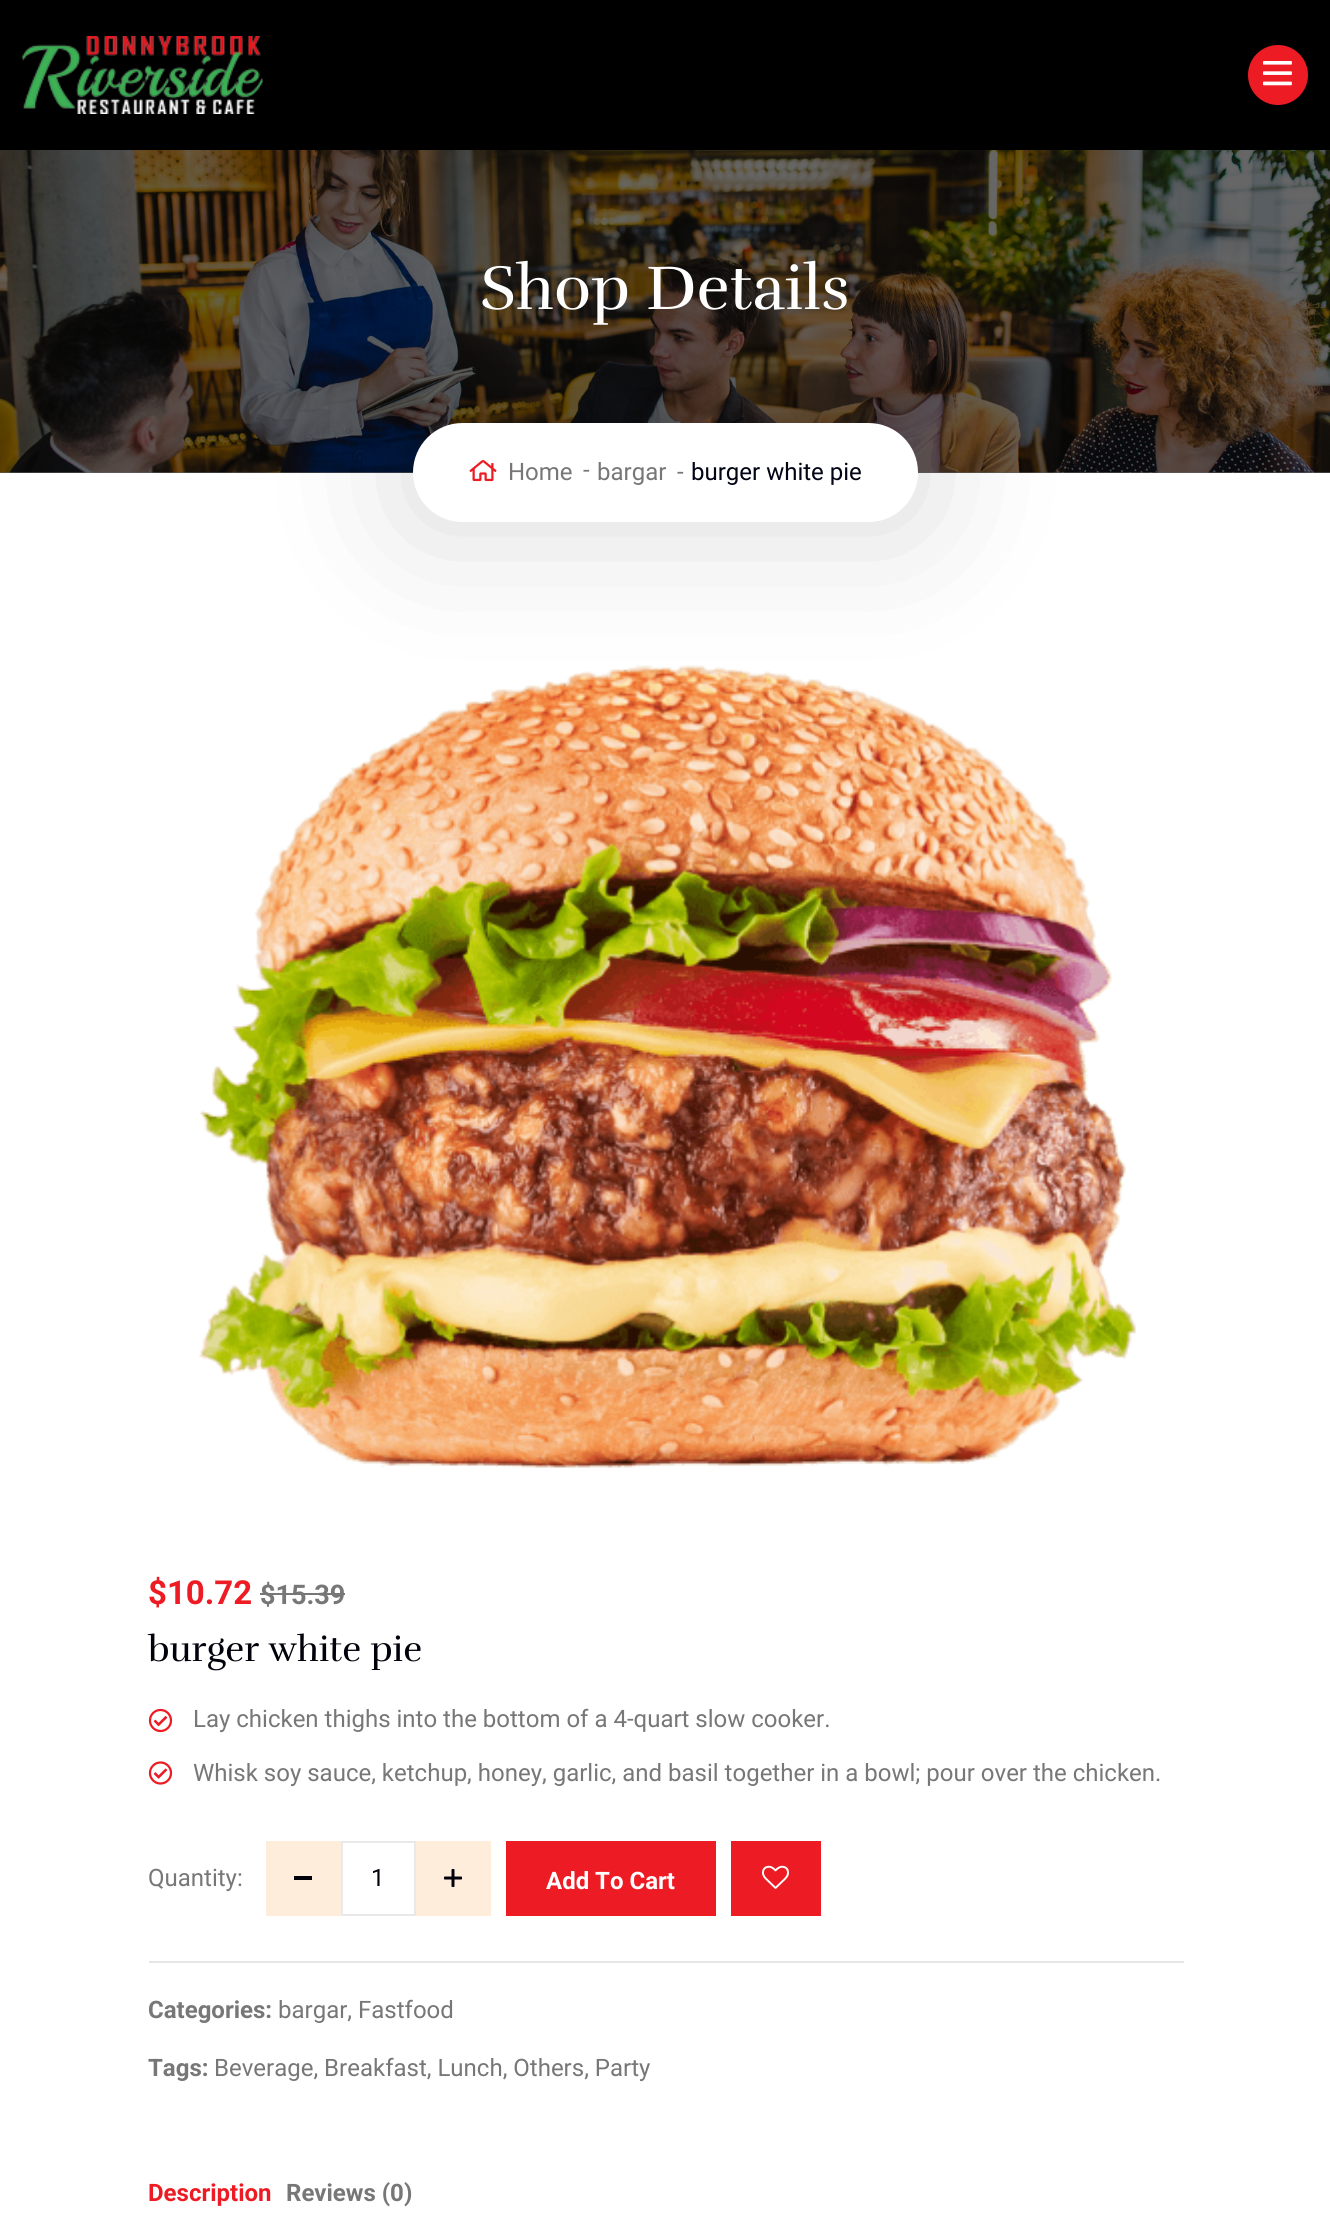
#include <cairo.h>
#include <math.h>
#include <stddef.h>


static void rgb(cairo_t *cr, int r, int g, int b)
{
	cairo_set_source_rgb(cr, r / 255.0, g / 255.0, b / 255.0);
}

static void face(cairo_t *cr, const char *family, double size, int italic, int bold)
{
	cairo_select_font_face(cr, family, italic ? CAIRO_FONT_SLANT_ITALIC : CAIRO_FONT_SLANT_NORMAL,
		bold ? CAIRO_FONT_WEIGHT_BOLD : CAIRO_FONT_WEIGHT_NORMAL);
	cairo_set_font_size(cr, size);
}

static void label(cairo_t *cr, double x, double y, const char *s)
{
	cairo_move_to(cr, x, y);
	cairo_show_text(cr, s);
}

static void rect(cairo_t *cr, double x, double y, double w, double h)
{
	cairo_rectangle(cr, x, y, w, h);
	cairo_fill(cr);
}

static void rrect(cairo_t *cr, double x, double y, double w, double h, double r)
{
	cairo_new_sub_path(cr);
	cairo_arc(cr, x + w - r, y + h - r, r, 0, M_PI / 2);
	cairo_arc(cr, x + r, y + h - r, r, M_PI / 2, M_PI);
	cairo_arc(cr, x + r, y + r, r, M_PI, 1.5 * M_PI);
	cairo_arc(cr, x + w - r, y + r, r, 1.5 * M_PI, 2 * M_PI);
	cairo_close_path(cr);
}

static void soft_shadow(cairo_t *cr, double x, double y, double w, double h, double r, double blur, double alpha)
{
	cairo_push_group_with_content(cr, CAIRO_CONTENT_ALPHA);
	cairo_set_operator(cr, CAIRO_OPERATOR_SOURCE);
	for (int i = 15; i >= -15 && fmin(w, h) + blur * i / 3 > 0; i -= 2) {
		double e = blur * i / 6;
		cairo_set_source_rgba(cr, 0, 0, 0, alpha * erfc((i - 1) / 8.5) / 2);
		rrect(cr, x - e, y - e, w + 2 * e, h + 2 * e, fmax(0, fmin(r + e + blur * .6, fmin(w, h) / 2 + e)));
		cairo_fill(cr);
	}
	cairo_pattern_t *soft = cairo_pop_group(cr);
	cairo_mask(cr, soft);
	cairo_pattern_destroy(soft);
}

static void image(cairo_t *cr, const char *path, double x, double y, double w, double h)
{
	cairo_surface_t *image = cairo_image_surface_create_from_png(path);
	cairo_save(cr);
	cairo_set_source_surface(cr, image, x, y);
	cairo_rectangle(cr, x, y, w, h);
	cairo_fill(cr);
	cairo_restore(cr);
	cairo_surface_destroy(image);
}

static void draw(cairo_t *cr) {
	rgb(cr, 255, 255, 255);
	cairo_paint(cr);
	rgb(cr, 102, 102, 102);
	rect(cr, 0, 472, 1330, 1);
	rgb(cr, 0, 0, 0);
	rect(cr, 0, 0, 1330, 150);
	image(cr, "image0.png", 22, 36, 241, 78);
	rgb(cr, 237, 28, 36);
	cairo_arc(cr, 1278, 75, 30, 0, 2 * M_PI);
	cairo_fill(cr);
	image(cr, "image1.png", 1263, 61, 29, 25);
	image(cr, "image2.png", 0, 150, 1330, 323);
	face(cr, "Rufina", 63, 0, 0);
	rgb(cr, 255, 255, 255);
	label(cr, 480, 309, "Shop Details");
	image(cr, "image4.png", 198, 665, 938, 803);
	rgb(cr, 0, 0, 0);
	soft_shadow(cr, 413, 425, 505, 99, 49.5, 75, 0.15);
	rgb(cr, 255, 255, 255);
	rrect(cr, 413, 423, 505, 99, 49.5);
	cairo_fill(cr);
	image(cr, "image3.png", 469, 460, 28, 22);
	face(cr, "Roboto", 24, 0, 0);
	rgb(cr, 119, 119, 119);
	label(cr, 508, 480, "Home");
	label(cr, 583, 478, "-");
	label(cr, 597, 480, "bargar");
	label(cr, 677, 480, "-");
	rgb(cr, 0, 4, 21);
	label(cr, 691, 480, "burger white pie");
	face(cr, "Roboto", 33, 0, 1);
	rgb(cr, 237, 28, 36);
	label(cr, 148, 1604, "$10.72");
	face(cr, "Roboto", 27, 0, 1);
	rgb(cr, 119, 119, 119);
	label(cr, 260, 1604, "$15.39");
	rect(cr, 260, 1593, 85, 2);
	face(cr, "Rufina", 36, 0, 0);
	rgb(cr, 0, 1, 10);
	label(cr, 148, 1661, "burger white pie");
	image(cr, "image5.png", 148, 1708, 25, 25);
	face(cr, "Roboto", 24, 0, 0);
	rgb(cr, 119, 119, 119);
	label(cr, 193, 1727, "Lay chicken thighs into the bottom of a 4-quart slow cooker.");
	image(cr, "image6.png", 148, 1761, 25, 24);
	label(cr, 193, 1781, "Whisk soy sauce, ketchup, honey, garlic, and basil together in a bowl; pour over the chicken.");
	label(cr, 148, 1886, "Quantity:");
	rgb(cr, 254, 237, 218);
	rect(cr, 266, 1841, 75, 75);
	rgb(cr, 0, 1, 10);
	rect(cr, 294, 1876, 18, 4);
	cairo_rectangle(cr, 342, 1842, 73, 73);
	rgb(cr, 233, 233, 233);
	cairo_stroke(cr);
	rgb(cr, 0, 1, 10);
	label(cr, 371, 1886, "1");
	rgb(cr, 254, 237, 218);
	rect(cr, 416, 1841, 75, 75);
	image(cr, "image7.png", 444, 1869, 18, 18);
	rgb(cr, 237, 28, 36);
	rect(cr, 506, 1841, 210, 75);
	face(cr, "Roboto", 24, 0, 1);
	rgb(cr, 255, 255, 255);
	label(cr, 546, 1889, "Add To Cart");
	rgb(cr, 237, 28, 36);
	rect(cr, 731, 1841, 90, 75);
	image(cr, "image8.png", 762, 1865, 27, 24);
	rgb(cr, 230, 230, 230);
	rect(cr, 149, 1961, 1035, 2);
	rgb(cr, 119, 119, 119);
	label(cr, 148, 2018, "Categories:");
	face(cr, "Roboto", 24, 0, 0);
	label(cr, 278, 2018, "bargar, Fastfood");
	face(cr, "Roboto", 24, 0, 1);
	label(cr, 148, 2076, "Tags:");
	face(cr, "Roboto", 24, 0, 0);
	label(cr, 214, 2076, "Beverage, Breakfast, Lunch, Others, Party");
	face(cr, "Roboto", 24, 0, 1);
	rgb(cr, 237, 28, 36);
	label(cr, 148, 2201, "Description");
	rgb(cr, 119, 119, 119);
	label(cr, 286, 2201, "Reviews (0)");
}

int main(void) {
	cairo_surface_t *surface = cairo_image_surface_create(CAIRO_FORMAT_RGB24, 1330, 2225);
	cairo_t *cr = cairo_create(surface);
	cairo_font_options_t *options = cairo_font_options_create();
	cairo_font_options_set_hint_metrics(options, CAIRO_HINT_METRICS_OFF);
	cairo_font_options_set_hint_style(options, CAIRO_HINT_STYLE_NONE);
	cairo_set_font_options(cr, options);
	cairo_set_miter_limit(cr, 4);
	draw(cr);
	cairo_surface_write_to_png(surface, "render.png");
	cairo_font_options_destroy(options);
	cairo_destroy(cr);
	cairo_surface_destroy(surface);
	return 0;
}
